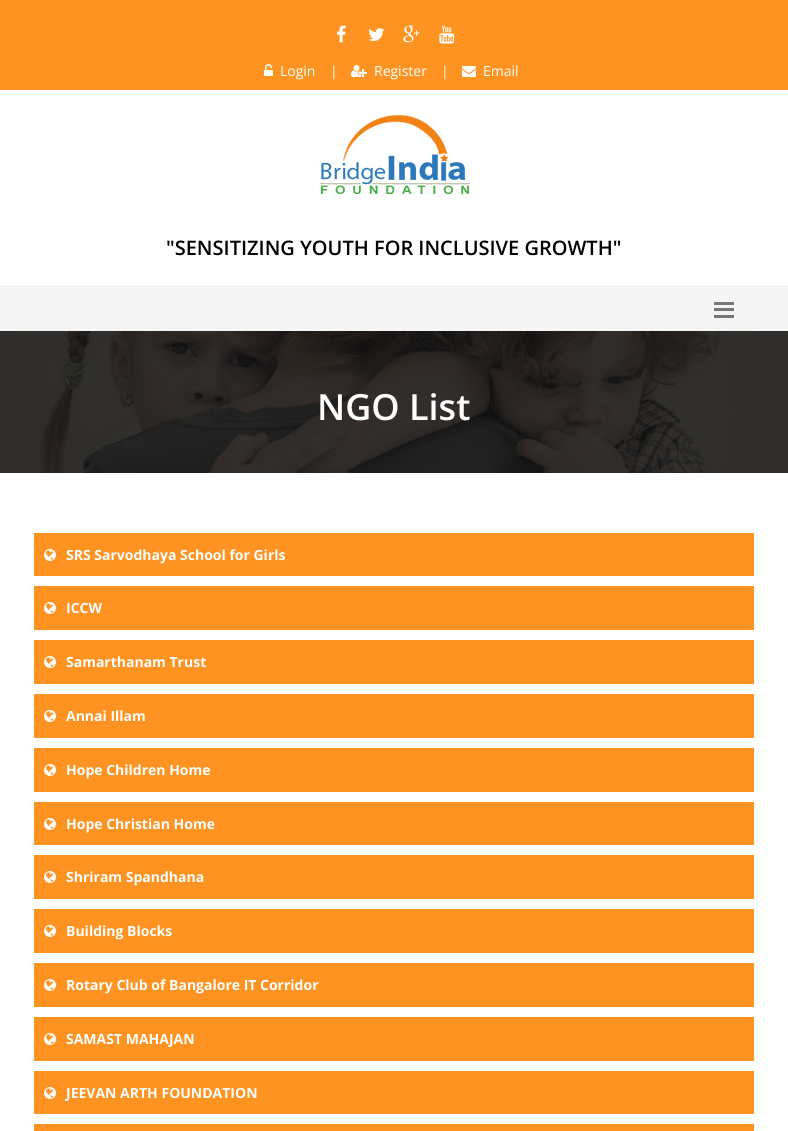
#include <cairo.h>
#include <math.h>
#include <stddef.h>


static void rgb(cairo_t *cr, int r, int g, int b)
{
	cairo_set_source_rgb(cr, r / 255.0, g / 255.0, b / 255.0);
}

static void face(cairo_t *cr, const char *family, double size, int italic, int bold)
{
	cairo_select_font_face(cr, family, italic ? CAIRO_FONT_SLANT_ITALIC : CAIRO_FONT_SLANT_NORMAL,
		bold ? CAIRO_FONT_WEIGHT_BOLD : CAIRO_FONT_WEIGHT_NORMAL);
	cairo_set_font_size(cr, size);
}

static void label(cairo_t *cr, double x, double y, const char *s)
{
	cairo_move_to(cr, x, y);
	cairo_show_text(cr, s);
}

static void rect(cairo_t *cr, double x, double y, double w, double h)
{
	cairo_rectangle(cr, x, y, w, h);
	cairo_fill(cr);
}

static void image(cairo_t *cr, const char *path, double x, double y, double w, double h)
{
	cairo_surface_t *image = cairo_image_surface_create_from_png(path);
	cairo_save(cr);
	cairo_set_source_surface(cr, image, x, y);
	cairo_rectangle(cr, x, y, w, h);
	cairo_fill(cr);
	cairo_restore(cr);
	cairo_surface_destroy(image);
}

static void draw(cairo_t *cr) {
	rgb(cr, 255, 255, 255);
	cairo_paint(cr);
	rgb(cr, 254, 147, 34);
	rect(cr, 0, 0, 788, 90);
	image(cr, "image0.png", 336, 25, 10, 18);
	image(cr, "image1.png", 368, 28, 17, 13);
	image(cr, "image2.png", 403, 25, 17, 18);
	image(cr, "image3.png", 439, 25, 16, 19);
	image(cr, "image4.png", 264, 64, 9, 12);
	face(cr, "Open Sans", 14, 0, 0);
	rgb(cr, 255, 255, 255);
	label(cr, 280, 76, "Login");
	label(cr, 330, 76, "|");
	image(cr, "image5.png", 351, 65, 16, 12);
	label(cr, 374, 76, "Register");
	label(cr, 441, 76, "|");
	image(cr, "image6.png", 462, 66, 14, 11);
	label(cr, 483, 76, "Email");
	image(cr, "image7.png", 320, 115, 150, 79);
	face(cr, "Open Sans SemiBold", 20, 0, 0);
	rgb(cr, 0, 0, 0);
	label(cr, 166, 255, "\"SENSITIZING YOUTH FOR INCLUSIVE GROWTH\"");
	rgb(cr, 245, 245, 245);
	rect(cr, 0, 285, 788, 46);
	rgb(cr, 119, 119, 119);
	rect(cr, 714, 302, 20, 3);
	rect(cr, 714, 308, 20, 3);
	rect(cr, 714, 315, 20, 3);
	image(cr, "image8.png", 0, 331, 788, 142);
	face(cr, "Open Sans SemiBold", 36, 0, 0);
	rgb(cr, 255, 255, 255);
	label(cr, 317, 420, "NGO List");
	rgb(cr, 254, 147, 34);
	rect(cr, 34, 533, 720, 43);
	image(cr, "image9.png", 44, 549, 12, 12);
	face(cr, "Open Sans", 14, 0, 1);
	rgb(cr, 255, 255, 255);
	label(cr, 66, 560, "SRS Sarvodhaya School for Girls");
	rgb(cr, 254, 147, 34);
	rect(cr, 34, 586, 720, 44);
	image(cr, "image9.png", 44, 602, 12, 12);
	rgb(cr, 255, 255, 255);
	label(cr, 66, 613, "ICCW");
	rgb(cr, 254, 147, 34);
	rect(cr, 34, 640, 720, 44);
	image(cr, "image9.png", 44, 656, 12, 12);
	rgb(cr, 255, 255, 255);
	label(cr, 66, 667, "Samarthanam Trust");
	rgb(cr, 254, 147, 34);
	rect(cr, 34, 694, 720, 44);
	image(cr, "image9.png", 44, 710, 12, 12);
	rgb(cr, 255, 255, 255);
	label(cr, 66, 721, "Annai Illam");
	rgb(cr, 254, 147, 34);
	rect(cr, 34, 748, 720, 44);
	image(cr, "image9.png", 44, 764, 12, 12);
	rgb(cr, 255, 255, 255);
	label(cr, 66, 775, "Hope Children Home");
	rgb(cr, 254, 147, 34);
	rect(cr, 34, 802, 720, 43);
	image(cr, "image9.png", 44, 818, 12, 12);
	rgb(cr, 255, 255, 255);
	label(cr, 66, 829, "Hope Christian Home");
	rgb(cr, 254, 147, 34);
	rect(cr, 34, 855, 720, 44);
	image(cr, "image9.png", 44, 871, 12, 12);
	rgb(cr, 255, 255, 255);
	label(cr, 66, 882, "Shriram Spandhana");
	rgb(cr, 254, 147, 34);
	rect(cr, 34, 909, 720, 44);
	image(cr, "image9.png", 44, 925, 12, 12);
	rgb(cr, 255, 255, 255);
	label(cr, 66, 936, "Building Blocks");
	rgb(cr, 254, 147, 34);
	rect(cr, 34, 963, 720, 44);
	image(cr, "image9.png", 44, 979, 12, 12);
	rgb(cr, 255, 255, 255);
	label(cr, 66, 990, "Rotary Club of Bangalore IT Corridor");
	rgb(cr, 254, 147, 34);
	rect(cr, 34, 1017, 720, 44);
	image(cr, "image9.png", 44, 1033, 12, 12);
	rgb(cr, 255, 255, 255);
	label(cr, 66, 1044, "SAMAST MAHAJAN");
	rgb(cr, 254, 147, 34);
	rect(cr, 34, 1071, 720, 43);
	image(cr, "image9.png", 44, 1087, 12, 12);
	rgb(cr, 255, 255, 255);
	label(cr, 66, 1098, "JEEVAN ARTH FOUNDATION");
	rgb(cr, 254, 147, 34);
	rect(cr, 34, 1124, 720, 7);
}

int main(void) {
	cairo_surface_t *surface = cairo_image_surface_create(CAIRO_FORMAT_RGB24, 788, 1131);
	cairo_t *cr = cairo_create(surface);
	cairo_font_options_t *options = cairo_font_options_create();
	cairo_font_options_set_hint_metrics(options, CAIRO_HINT_METRICS_OFF);
	cairo_font_options_set_hint_style(options, CAIRO_HINT_STYLE_NONE);
	cairo_set_font_options(cr, options);
	cairo_set_miter_limit(cr, 4);
	draw(cr);
	cairo_surface_write_to_png(surface, "render.png");
	cairo_font_options_destroy(options);
	cairo_destroy(cr);
	cairo_surface_destroy(surface);
	return 0;
}
